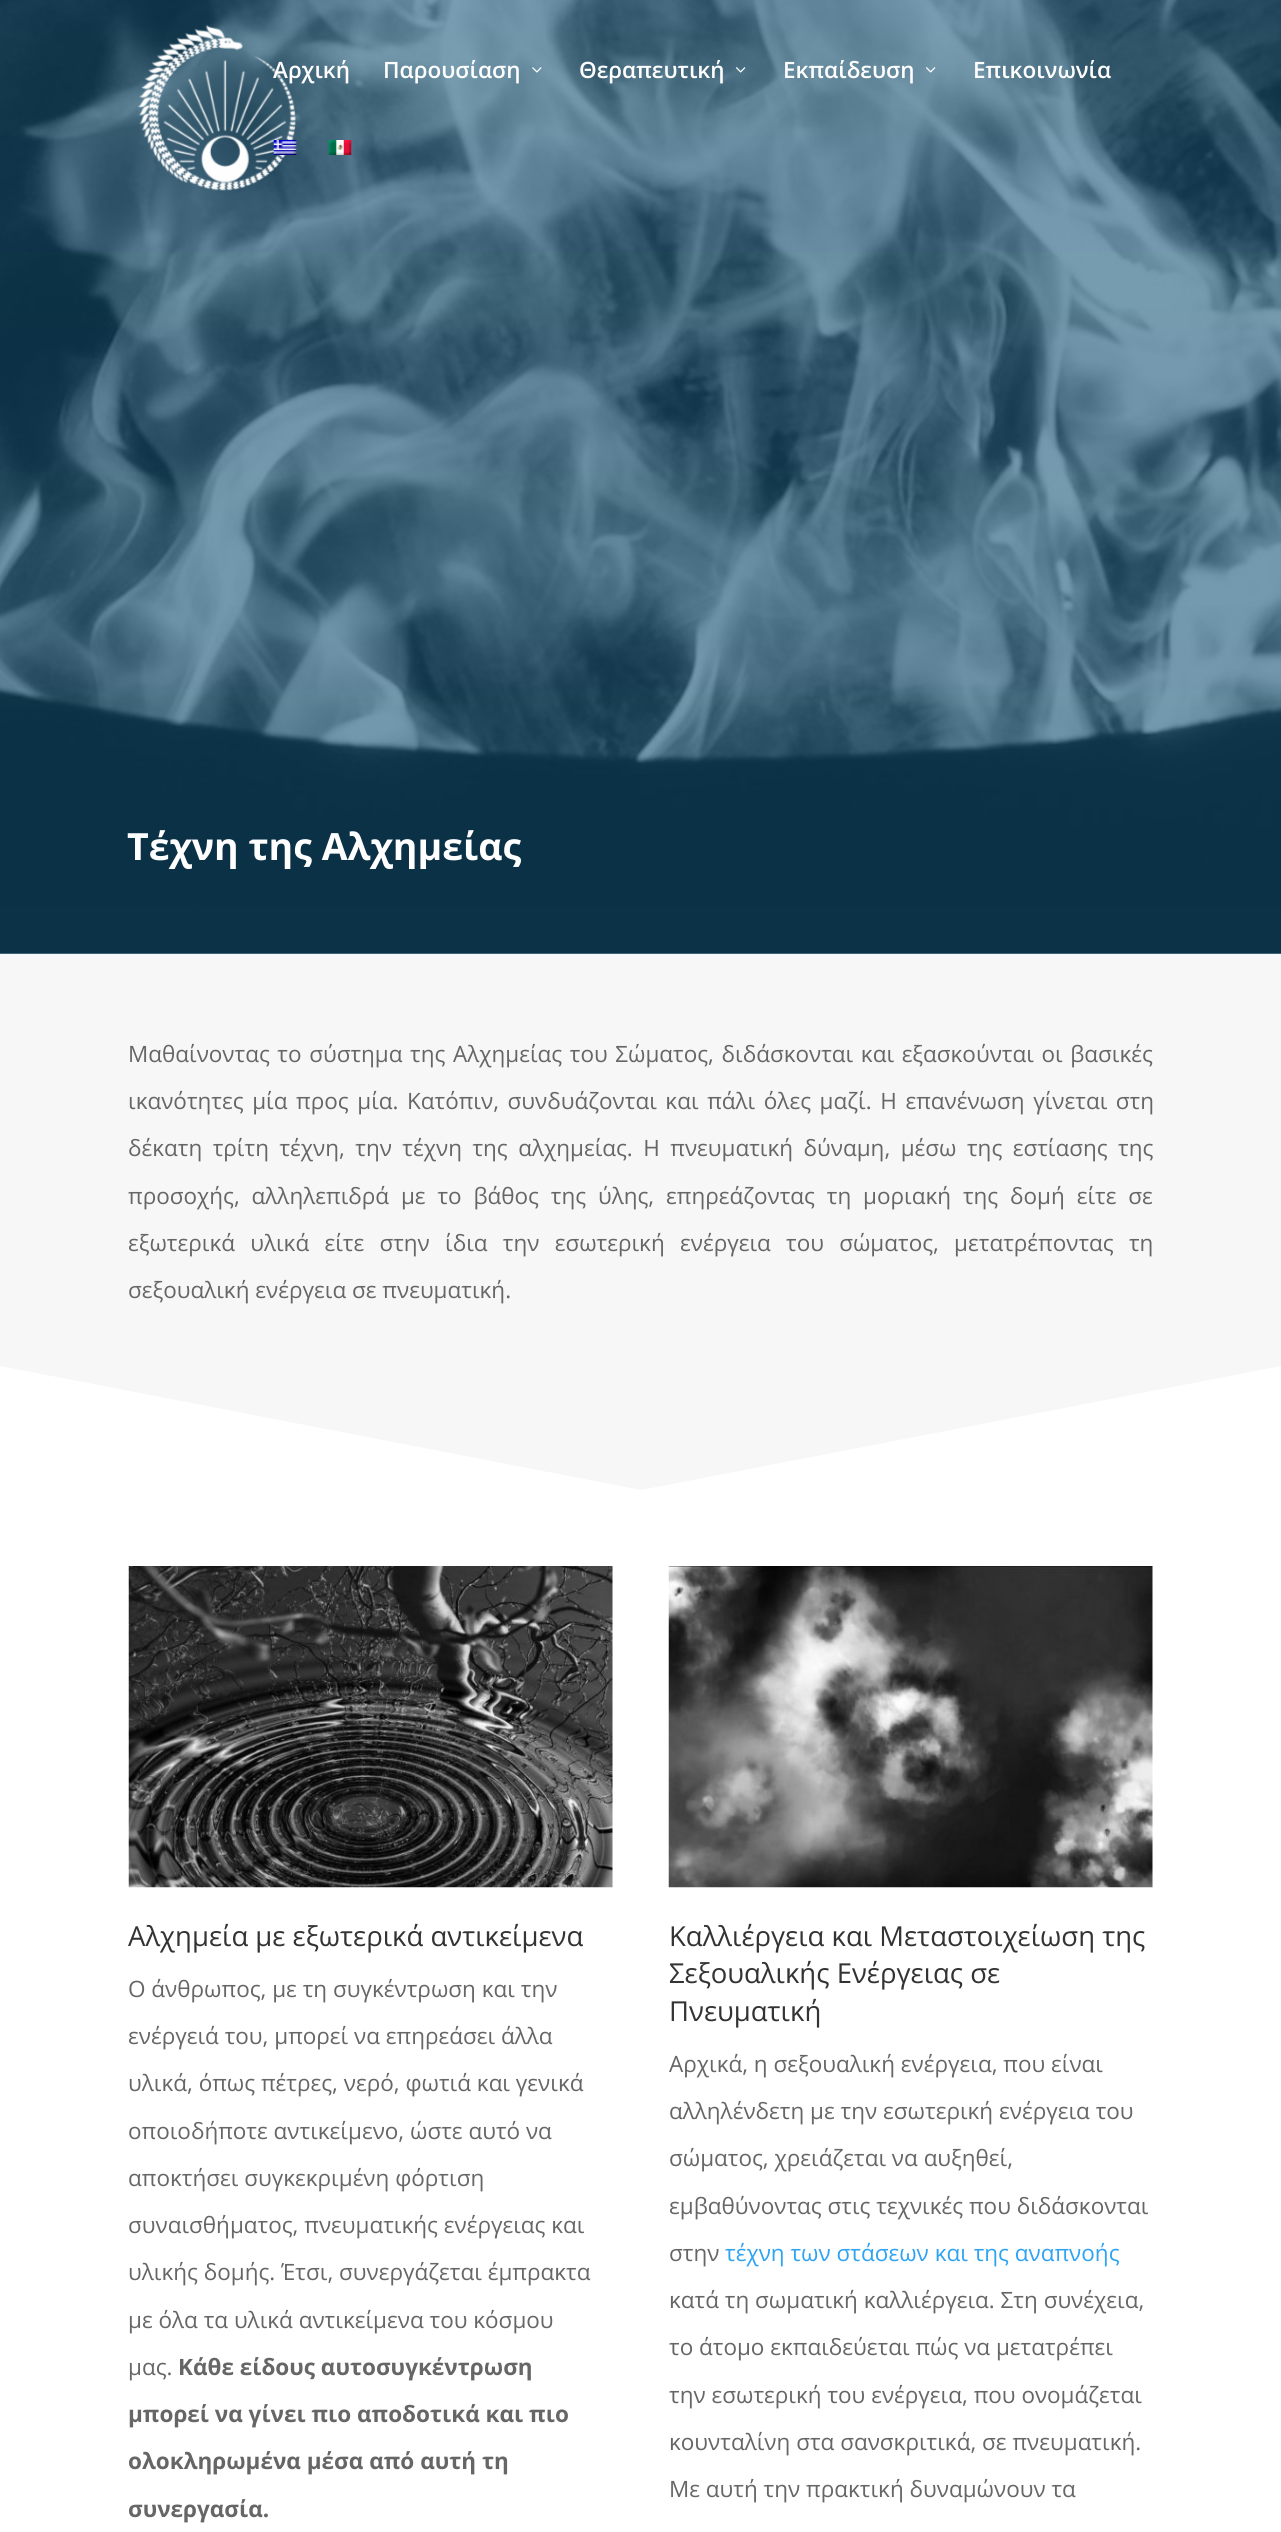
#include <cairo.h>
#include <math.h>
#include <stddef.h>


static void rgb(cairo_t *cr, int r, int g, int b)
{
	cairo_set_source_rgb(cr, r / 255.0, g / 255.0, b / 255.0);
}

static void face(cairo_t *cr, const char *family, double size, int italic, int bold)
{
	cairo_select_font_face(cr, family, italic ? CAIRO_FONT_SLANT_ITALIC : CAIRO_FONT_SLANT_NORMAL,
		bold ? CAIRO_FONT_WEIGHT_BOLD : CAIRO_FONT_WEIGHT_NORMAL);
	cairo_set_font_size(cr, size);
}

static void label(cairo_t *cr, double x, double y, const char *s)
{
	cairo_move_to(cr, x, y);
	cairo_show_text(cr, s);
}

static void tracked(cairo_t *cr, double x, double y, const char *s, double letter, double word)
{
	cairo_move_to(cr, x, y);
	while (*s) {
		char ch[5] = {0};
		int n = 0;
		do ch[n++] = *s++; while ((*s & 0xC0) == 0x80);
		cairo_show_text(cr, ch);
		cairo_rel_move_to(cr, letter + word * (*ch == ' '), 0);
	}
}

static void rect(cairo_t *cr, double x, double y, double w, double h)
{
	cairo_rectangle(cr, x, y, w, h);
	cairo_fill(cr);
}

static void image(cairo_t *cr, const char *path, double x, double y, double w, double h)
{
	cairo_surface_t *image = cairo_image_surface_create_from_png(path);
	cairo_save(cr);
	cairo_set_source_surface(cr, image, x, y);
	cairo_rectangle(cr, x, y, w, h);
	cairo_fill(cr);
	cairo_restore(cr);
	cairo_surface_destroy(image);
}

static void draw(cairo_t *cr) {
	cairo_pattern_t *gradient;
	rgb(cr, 255, 255, 255);
	cairo_paint(cr);
	image(cr, "image6.png", 0, 0, 1281, 954);
	gradient = cairo_pattern_create_linear(641, -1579, 641, 954);
	cairo_pattern_add_color_stop_rgba(gradient, 0, 0.035, 0.302, 0.451, 0.5);
	cairo_pattern_add_color_stop_rgba(gradient, 1, 0.075, 0.325, 0.463, 0.6);
	cairo_set_source(cr, gradient);
	cairo_pattern_destroy(gradient);
	rect(cr, 0, 0, 1281, 954);
	image(cr, "image0.png", 137, 24, 159, 167);
	face(cr, "Open Sans SemiBold", 22.5, 0, 0);
	rgb(cr, 255, 255, 255);
	label(cr, 273, 78, "Αρχική");
	label(cr, 383, 78, "Παρουσίαση");
	image(cr, "image1.png", 532, 67, 10, 6);
	label(cr, 579, 78, "Θεραπευτική");
	image(cr, "image2.png", 736, 67, 10, 6);
	label(cr, 783, 78, "Εκπαίδευση");
	image(cr, "image3.png", 926, 67, 10, 6);
	label(cr, 973, 78, "Επικοινωνία");
	image(cr, "image4.png", 273, 140, 24, 15);
	image(cr, "image5.png", 328, 140, 24, 15);
	face(cr, "Open Sans", 37.5, 0, 1);
	label(cr, 127, 860, "Τέχνη της Αλχημείας");
	rgb(cr, 247, 247, 247);
	rect(cr, 0, 954, 1281, 536);
	face(cr, "Open Sans", 22.5, 0, 0);
	rgb(cr, 102, 102, 102);
	tracked(cr, 128, 1062, "Μαθαίνοντας το σύστημα της Αλχημείας του Σώματος, διδάσκονται και εξασκούνται οι βασικές", 0, 1.75);
	tracked(cr, 128, 1109, "ικανότητες μία προς μία. Κατόπιν, συνδυάζονται και πάλι όλες μαζί. Η επανένωση γίνεται στη", 0, 2.75);
	tracked(cr, 128, 1156, "δέκατη τρίτη τέχνη, την τέχνη της αλχημείας. Η πνευματική δύναμη, μέσω της εστίασης της", 0, 4.6);
	tracked(cr, 128, 1204, "προσοχής, αλληλεπιδρά με το βάθος της ύλης, επηρεάζοντας τη μοριακή της δομή είτε σε", 0, 6);
	tracked(cr, 128, 1251, "εξωτερικά υλικά είτε στην ίδια την εσωτερική ενέργεια του σώματος, μετατρέποντας τη", 0, 9.4);
	label(cr, 128, 1298, "σεξουαλική ενέργεια σε πνευματική.");
	rgb(cr, 255, 255, 255);
	cairo_new_path(cr);
	cairo_move_to(cr, 641, 1490);
	cairo_line_to(cr, 0, 1366);
	cairo_line_to(cr, 0, 1491);
	cairo_line_to(cr, 1281, 1491);
	cairo_line_to(cr, 1281, 1366);
	cairo_close_path(cr);
	cairo_fill(cr);
	image(cr, "image7.png", 128, 1566, 485, 322);
	face(cr, "Open Sans", 27.5, 0, 0);
	rgb(cr, 51, 51, 51);
	label(cr, 128, 1946, "Αλχημεία με εξωτερικά αντικείμενα");
	face(cr, "Open Sans", 22.5, 0, 0);
	rgb(cr, 102, 102, 102);
	label(cr, 128, 1997, "Ο άνθρωπος, με τη συγκέντρωση και την");
	label(cr, 128, 2044, "ενέργειά του, μπορεί να επηρεάσει άλλα");
	label(cr, 128, 2091, "υλικά, όπως πέτρες, νερό, φωτιά και γενικά");
	label(cr, 128, 2139, "οποιοδήποτε αντικείμενο, ώστε αυτό να");
	label(cr, 128, 2186, "αποκτήσει συγκεκριμένη φόρτιση");
	label(cr, 128, 2233, "συναισθήματος, πνευματικής ενέργειας και");
	label(cr, 128, 2280, "υλικής δομής. Έτσι, συνεργάζεται έμπρακτα");
	label(cr, 128, 2328, "με όλα τα υλικά αντικείμενα του κόσμου");
	label(cr, 128, 2375, "μας.");
	face(cr, "Open Sans", 22.5, 0, 1);
	label(cr, 178, 2375, "Κάθε είδους αυτοσυγκέντρωση");
	label(cr, 128, 2422, "μπορεί να γίνει πιο αποδοτικά και πιο");
	label(cr, 128, 2469, "ολοκληρωμένα μέσα από αυτή τη");
	label(cr, 128, 2517, "συνεργασία.");
	image(cr, "image8.png", 668, 1566, 485, 322);
	face(cr, "Open Sans", 27.5, 0, 0);
	rgb(cr, 51, 51, 51);
	label(cr, 669, 1946, "Καλλιέργεια και Μεταστοιχείωση της");
	label(cr, 669, 1983, "Σεξουαλικής Ενέργειας σε");
	label(cr, 669, 2021, "Πνευματική");
	face(cr, "Open Sans", 22.5, 0, 0);
	rgb(cr, 102, 102, 102);
	label(cr, 669, 2072, "Αρχικά, η σεξουαλική ενέργεια, που είναι");
	label(cr, 669, 2119, "αλληλένδετη με την εσωτερική ενέργεια του");
	label(cr, 669, 2166, "σώματος, χρειάζεται να αυξηθεί,");
	label(cr, 669, 2214, "εμβαθύνοντας στις τεχνικές που διδάσκονται");
	label(cr, 669, 2261, "στην");
	rgb(cr, 46, 163, 242);
	label(cr, 725, 2261, "τέχνη των στάσεων και της αναπνοής");
	rgb(cr, 102, 102, 102);
	label(cr, 669, 2308, "κατά τη σωματική καλλιέργεια. Στη συνέχεια,");
	label(cr, 669, 2355, "το άτομο εκπαιδεύεται πώς να μετατρέπει");
	label(cr, 669, 2403, "την εσωτερική του ενέργεια, που ονομάζεται");
	label(cr, 669, 2450, "κουνταλίνη στα σανσκριτικά, σε πνευματική.");
	label(cr, 669, 2497, "Με αυτή την πρακτική δυναμώνουν τα");
}

int main(void) {
	cairo_surface_t *surface = cairo_image_surface_create(CAIRO_FORMAT_RGB24, 1281, 2532);
	cairo_t *cr = cairo_create(surface);
	cairo_font_options_t *options = cairo_font_options_create();
	cairo_font_options_set_hint_metrics(options, CAIRO_HINT_METRICS_OFF);
	cairo_font_options_set_hint_style(options, CAIRO_HINT_STYLE_NONE);
	cairo_set_font_options(cr, options);
	cairo_set_miter_limit(cr, 4);
	draw(cr);
	cairo_surface_write_to_png(surface, "render.png");
	cairo_font_options_destroy(options);
	cairo_destroy(cr);
	cairo_surface_destroy(surface);
	return 0;
}
